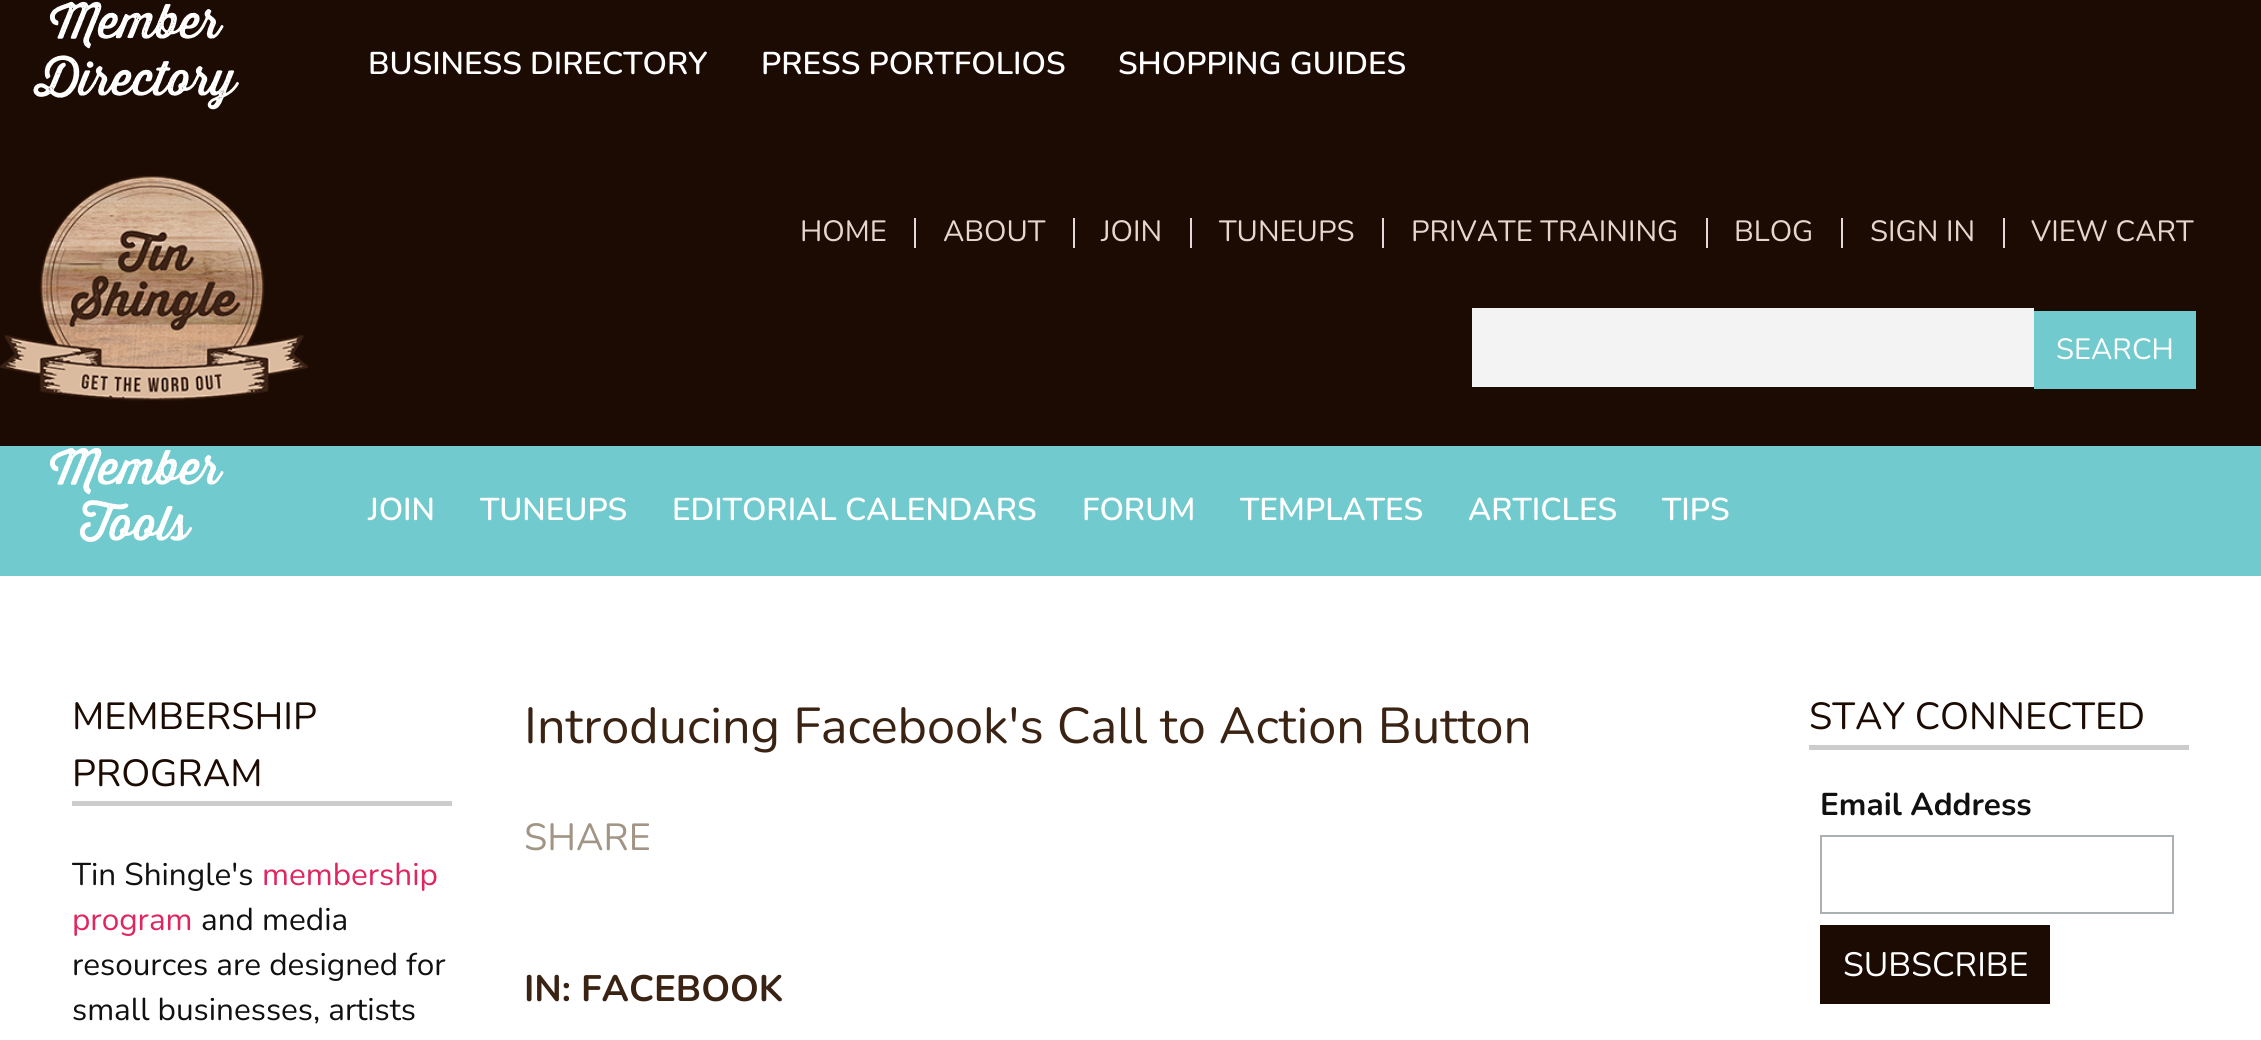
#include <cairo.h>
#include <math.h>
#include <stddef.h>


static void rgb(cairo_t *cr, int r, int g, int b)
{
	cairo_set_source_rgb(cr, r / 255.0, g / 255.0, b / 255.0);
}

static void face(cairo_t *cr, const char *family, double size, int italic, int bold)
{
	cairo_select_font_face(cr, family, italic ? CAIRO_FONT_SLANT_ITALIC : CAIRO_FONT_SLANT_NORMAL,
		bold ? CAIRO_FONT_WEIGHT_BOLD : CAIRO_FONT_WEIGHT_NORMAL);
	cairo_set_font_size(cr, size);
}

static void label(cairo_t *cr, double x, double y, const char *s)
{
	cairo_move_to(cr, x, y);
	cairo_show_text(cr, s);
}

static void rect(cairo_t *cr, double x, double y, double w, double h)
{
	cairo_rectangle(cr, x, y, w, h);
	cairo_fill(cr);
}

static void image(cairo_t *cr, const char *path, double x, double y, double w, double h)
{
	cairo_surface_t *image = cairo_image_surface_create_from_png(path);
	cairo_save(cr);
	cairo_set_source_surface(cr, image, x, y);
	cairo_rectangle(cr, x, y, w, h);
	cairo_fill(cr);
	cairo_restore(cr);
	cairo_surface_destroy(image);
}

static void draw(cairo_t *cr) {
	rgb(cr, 255, 255, 255);
	cairo_paint(cr);
	rgb(cr, 28, 11, 3);
	rect(cr, 0, 0, 2261, 446);
	face(cr, "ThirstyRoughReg", 47.25, 0, 0);
	rgb(cr, 255, 255, 255);
	label(cr, 50, 38, "Member");
	label(cr, 35, 95, "Directory");
	face(cr, "Nunito SemiBold", 31.5, 0, 0);
	label(cr, 368, 74, "BUSINESS DIRECTORY");
	label(cr, 761, 74, "PRESS PORTFOLIOS");
	label(cr, 1118, 74, "SHOPPING GUIDES");
	image(cr, "image0.png", 0, 175, 309, 226);
	face(cr, "Nunito", 29.25, 0, 0);
	rgb(cr, 229, 214, 207);
	label(cr, 800, 241, "HOME");
	rgb(cr, 227, 217, 217);
	rect(cr, 914, 218, 2, 30);
	rgb(cr, 229, 214, 207);
	label(cr, 943, 241, "ABOUT");
	rgb(cr, 227, 217, 217);
	rect(cr, 1073, 218, 2, 30);
	rgb(cr, 229, 214, 207);
	label(cr, 1101, 241, "JOIN");
	rgb(cr, 227, 217, 217);
	rect(cr, 1190, 218, 2, 30);
	rgb(cr, 229, 214, 207);
	label(cr, 1219, 241, "TUNEUPS");
	rgb(cr, 227, 217, 217);
	rect(cr, 1382, 218, 2, 30);
	rgb(cr, 229, 214, 207);
	label(cr, 1411, 241, "PRIVATE TRAINING");
	rgb(cr, 227, 217, 217);
	rect(cr, 1706, 218, 2, 30);
	rgb(cr, 229, 214, 207);
	label(cr, 1734, 241, "BLOG");
	rgb(cr, 227, 217, 217);
	rect(cr, 1841, 218, 2, 30);
	rgb(cr, 229, 214, 207);
	label(cr, 1870, 241, "SIGN IN");
	rgb(cr, 227, 217, 217);
	rect(cr, 2003, 218, 2, 30);
	rgb(cr, 229, 214, 207);
	label(cr, 2031, 241, "VIEW CART");
	rgb(cr, 243, 243, 243);
	rect(cr, 1472, 308, 562, 79);
	rgb(cr, 113, 202, 206);
	rect(cr, 2034, 311, 162, 78);
	rgb(cr, 255, 255, 255);
	label(cr, 2056, 359, "SEARCH");
	rgb(cr, 113, 202, 206);
	rect(cr, 0, 446, 2261, 130);
	face(cr, "ThirstyRoughReg", 47.25, 0, 0);
	rgb(cr, 255, 255, 255);
	label(cr, 50, 484, "Member");
	label(cr, 80, 540, "Tools");
	face(cr, "Nunito SemiBold", 31.5, 0, 0);
	label(cr, 368, 520, "JOIN");
	label(cr, 480, 520, "TUNEUPS");
	label(cr, 672, 520, "EDITORIAL CALENDARS");
	label(cr, 1082, 520, "FORUM");
	label(cr, 1240, 520, "TEMPLATES");
	label(cr, 1468, 520, "ARTICLES");
	label(cr, 1662, 520, "TIPS");
	rgb(cr, 204, 204, 204);
	rect(cr, 72, 801, 380, 5);
	face(cr, "Nunito", 37.75, 0, 0);
	rgb(cr, 28, 11, 3);
	label(cr, 72, 729, "MEMBERSHIP");
	label(cr, 72, 786, "PROGRAM");
	face(cr, "Nunito", 31.5, 0, 0);
	rgb(cr, 17, 17, 17);
	label(cr, 72, 885, "Tin Shingle's");
	rgb(cr, 223, 38, 95);
	label(cr, 262, 885, "membership");
	label(cr, 72, 930, "program");
	rgb(cr, 17, 17, 17);
	label(cr, 201, 930, "and media");
	label(cr, 72, 975, "resources are designed for");
	label(cr, 72, 1020, "small businesses, artists");
	rgb(cr, 204, 204, 204);
	rect(cr, 1809, 745, 380, 5);
	face(cr, "Nunito", 37.75, 0, 0);
	rgb(cr, 28, 11, 3);
	label(cr, 1809, 729, "STAY CONNECTED");
	face(cr, "Nunito", 31.5, 0, 1);
	rgb(cr, 17, 17, 17);
	label(cr, 1820, 815, "Email Address");
	cairo_rectangle(cr, 1821, 836, 352, 77);
	rgb(cr, 171, 176, 178);
	cairo_stroke(cr);
	rgb(cr, 28, 11, 3);
	rect(cr, 1820, 925, 230, 79);
	face(cr, "Nunito", 33.75, 0, 0);
	rgb(cr, 255, 255, 255);
	label(cr, 1843, 976, "SUBSCRIBE");
	face(cr, "Nunito", 50.4, 0, 0);
	rgb(cr, 58, 35, 19);
	label(cr, 524, 743, "Introducing Facebook's Call to Action Button");
	face(cr, "Nunito", 37.75, 0, 0);
	rgb(cr, 162, 149, 133);
	label(cr, 524, 850, "SHARE");
	face(cr, "Nunito", 36.75, 0, 1);
	rgb(cr, 58, 35, 19);
	label(cr, 524, 1001, "IN: FACEBOOK");
}

int main(void) {
	cairo_surface_t *surface = cairo_image_surface_create(CAIRO_FORMAT_RGB24, 2261, 1040);
	cairo_t *cr = cairo_create(surface);
	cairo_font_options_t *options = cairo_font_options_create();
	cairo_font_options_set_hint_metrics(options, CAIRO_HINT_METRICS_OFF);
	cairo_font_options_set_hint_style(options, CAIRO_HINT_STYLE_NONE);
	cairo_set_font_options(cr, options);
	cairo_set_miter_limit(cr, 4);
	draw(cr);
	cairo_surface_write_to_png(surface, "render.png");
	cairo_font_options_destroy(options);
	cairo_destroy(cr);
	cairo_surface_destroy(surface);
	return 0;
}
